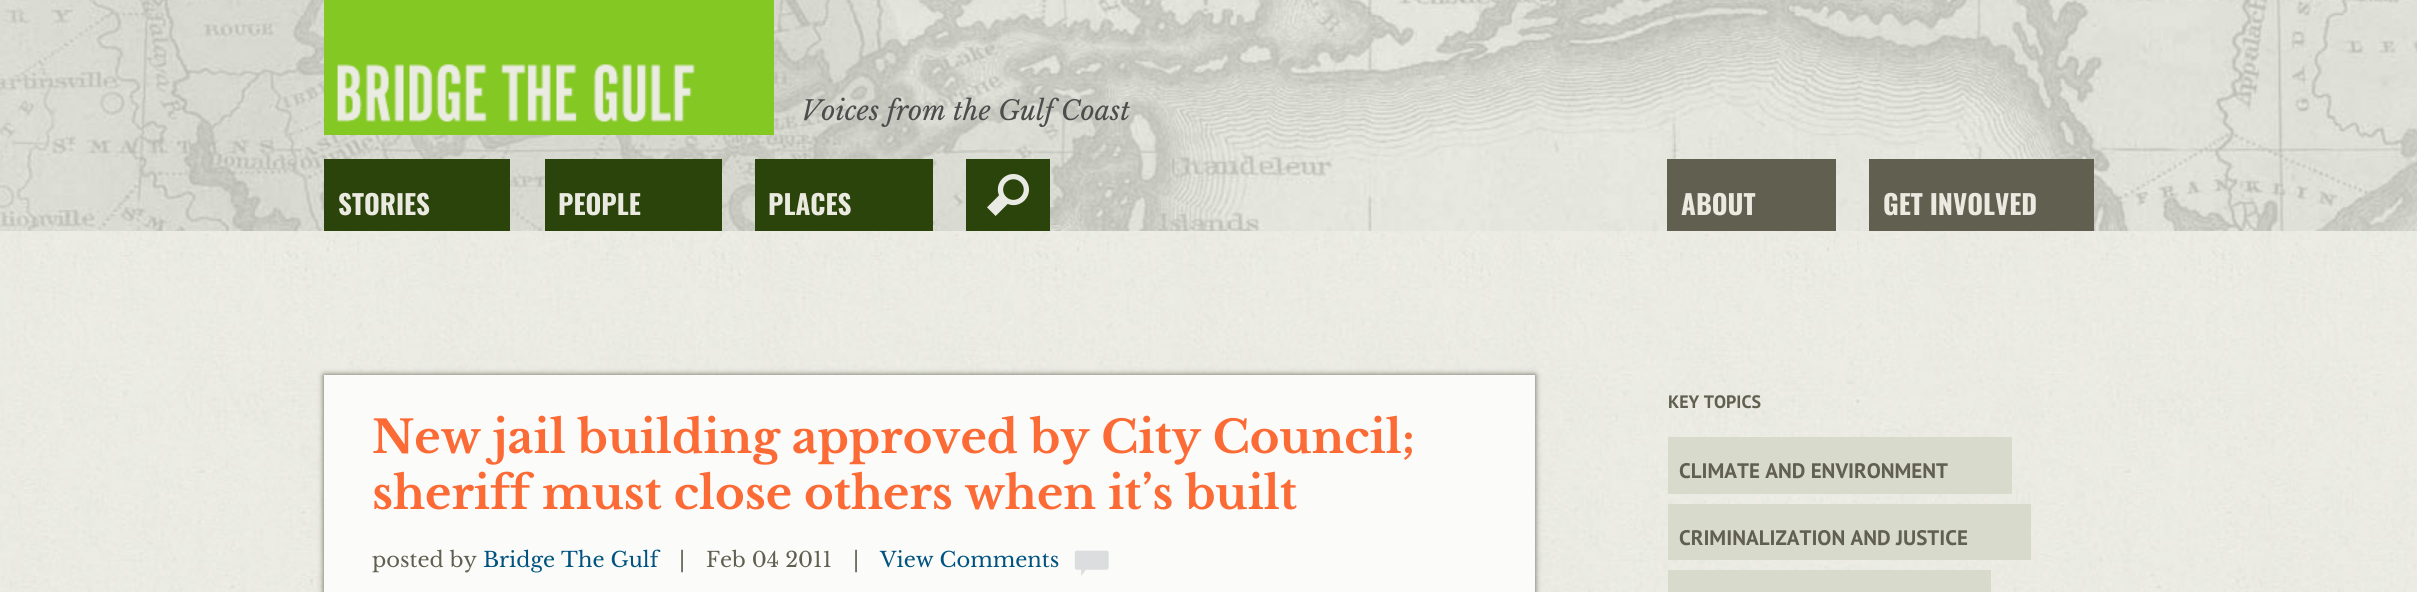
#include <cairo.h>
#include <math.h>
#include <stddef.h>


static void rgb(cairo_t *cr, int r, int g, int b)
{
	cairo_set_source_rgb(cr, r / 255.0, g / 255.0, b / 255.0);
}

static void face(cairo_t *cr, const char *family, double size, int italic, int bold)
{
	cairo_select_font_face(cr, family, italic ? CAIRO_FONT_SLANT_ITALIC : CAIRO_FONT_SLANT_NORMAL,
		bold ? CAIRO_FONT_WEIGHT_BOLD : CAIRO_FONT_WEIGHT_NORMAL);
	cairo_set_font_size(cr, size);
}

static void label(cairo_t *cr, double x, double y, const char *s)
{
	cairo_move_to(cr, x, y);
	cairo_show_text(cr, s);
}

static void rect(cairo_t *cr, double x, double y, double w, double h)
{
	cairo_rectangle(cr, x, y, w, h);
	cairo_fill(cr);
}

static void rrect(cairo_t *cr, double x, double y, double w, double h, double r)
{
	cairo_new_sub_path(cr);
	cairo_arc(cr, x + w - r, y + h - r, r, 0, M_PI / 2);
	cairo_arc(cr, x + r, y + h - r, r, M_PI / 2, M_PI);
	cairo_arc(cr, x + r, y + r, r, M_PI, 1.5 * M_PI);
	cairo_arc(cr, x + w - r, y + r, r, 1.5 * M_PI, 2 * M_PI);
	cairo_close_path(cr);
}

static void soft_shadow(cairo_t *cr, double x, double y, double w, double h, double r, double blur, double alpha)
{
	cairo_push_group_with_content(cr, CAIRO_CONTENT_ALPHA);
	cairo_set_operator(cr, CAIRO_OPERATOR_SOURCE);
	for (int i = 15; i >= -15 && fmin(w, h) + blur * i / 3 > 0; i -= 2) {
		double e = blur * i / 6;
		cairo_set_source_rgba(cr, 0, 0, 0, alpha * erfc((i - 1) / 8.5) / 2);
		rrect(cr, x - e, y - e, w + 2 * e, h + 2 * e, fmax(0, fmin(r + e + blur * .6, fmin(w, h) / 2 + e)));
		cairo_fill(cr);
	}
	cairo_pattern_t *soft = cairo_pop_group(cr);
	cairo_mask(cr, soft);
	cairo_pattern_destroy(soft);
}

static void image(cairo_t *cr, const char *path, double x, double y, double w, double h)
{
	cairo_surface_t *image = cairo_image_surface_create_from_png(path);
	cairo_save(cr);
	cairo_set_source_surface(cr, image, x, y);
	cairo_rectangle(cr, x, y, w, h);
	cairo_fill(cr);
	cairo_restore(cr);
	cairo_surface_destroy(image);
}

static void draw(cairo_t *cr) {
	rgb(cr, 255, 255, 255);
	cairo_paint(cr);
	image(cr, "image0.png", 0, 231, 2417, 361);
	image(cr, "image1.png", 0, 0, 2417, 231);
	image(cr, "image2.png", 324, 0, 450, 135);
	face(cr, "Libre Baskerville", 27, 1, 0);
	rgb(cr, 76, 76, 77);
	label(cr, 801, 120, "Voices from the Gulf Coast");
	rgb(cr, 43, 68, 11);
	rect(cr, 324, 159, 186, 72);
	face(cr, "Oswald", 27, 0, 1);
	rgb(cr, 235, 234, 225);
	label(cr, 338, 215, "STORIES");
	rgb(cr, 43, 68, 11);
	rect(cr, 545, 159, 177, 72);
	rgb(cr, 235, 234, 225);
	label(cr, 558, 215, "PEOPLE");
	rgb(cr, 43, 68, 11);
	rect(cr, 755, 159, 178, 72);
	rgb(cr, 235, 234, 225);
	label(cr, 768, 215, "PLACES");
	rgb(cr, 43, 68, 11);
	rect(cr, 966, 159, 84, 72);
	image(cr, "image3.png", 987, 174, 42, 42);
	rgb(cr, 97, 95, 80);
	rect(cr, 1667, 159, 169, 72);
	rgb(cr, 235, 234, 225);
	label(cr, 1681, 215, "ABOUT");
	rgb(cr, 97, 95, 80);
	rect(cr, 1869, 159, 225, 72);
	rgb(cr, 235, 234, 225);
	label(cr, 1883, 215, "GET INVOLVED");
	rgb(cr, 97, 95, 80);
	soft_shadow(cr, 324, 375, 1211, 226, 0, 3, 1);
	rgb(cr, 251, 251, 249);
	rect(cr, 324, 375, 1211, 217);
	face(cr, "Libre Baskerville", 45, 0, 1);
	rgb(cr, 252, 106, 53);
	label(cr, 372, 453, "New jail building approved by City Council;");
	label(cr, 372, 509, "sheriff must close others when it’s built");
	face(cr, "Libre Baskerville", 21, 0, 0);
	rgb(cr, 97, 95, 80);
	label(cr, 372, 567, "posted by");
	rgb(cr, 0, 83, 128);
	label(cr, 483, 567, "Bridge The Gulf");
	rgb(cr, 97, 95, 80);
	label(cr, 679, 567, "|");
	label(cr, 706, 567, "Feb 04 2011");
	label(cr, 853, 567, "|");
	rgb(cr, 0, 83, 128);
	label(cr, 880, 567, "View Comments");
	image(cr, "image4.png", 1074, 550, 35, 26);
	face(cr, "PT Sans", 18, 0, 1);
	rgb(cr, 97, 95, 80);
	label(cr, 1668, 408, "KEY TOPICS");
	rgb(cr, 216, 218, 204);
	rect(cr, 1668, 437, 344, 57);
	face(cr, "PT Sans", 21, 0, 1);
	rgb(cr, 97, 95, 80);
	label(cr, 1679, 478, "CLIMATE AND ENVIRONMENT");
	rgb(cr, 216, 218, 204);
	rect(cr, 1668, 504, 363, 56);
	rgb(cr, 97, 95, 80);
	label(cr, 1679, 545, "CRIMINALIZATION AND JUSTICE");
	rgb(cr, 216, 218, 204);
	rect(cr, 1668, 570, 323, 22);
}

int main(void) {
	cairo_surface_t *surface = cairo_image_surface_create(CAIRO_FORMAT_RGB24, 2417, 592);
	cairo_t *cr = cairo_create(surface);
	cairo_font_options_t *options = cairo_font_options_create();
	cairo_font_options_set_hint_metrics(options, CAIRO_HINT_METRICS_OFF);
	cairo_font_options_set_hint_style(options, CAIRO_HINT_STYLE_NONE);
	cairo_set_font_options(cr, options);
	cairo_set_miter_limit(cr, 4);
	draw(cr);
	cairo_surface_write_to_png(surface, "render.png");
	cairo_font_options_destroy(options);
	cairo_destroy(cr);
	cairo_surface_destroy(surface);
	return 0;
}
